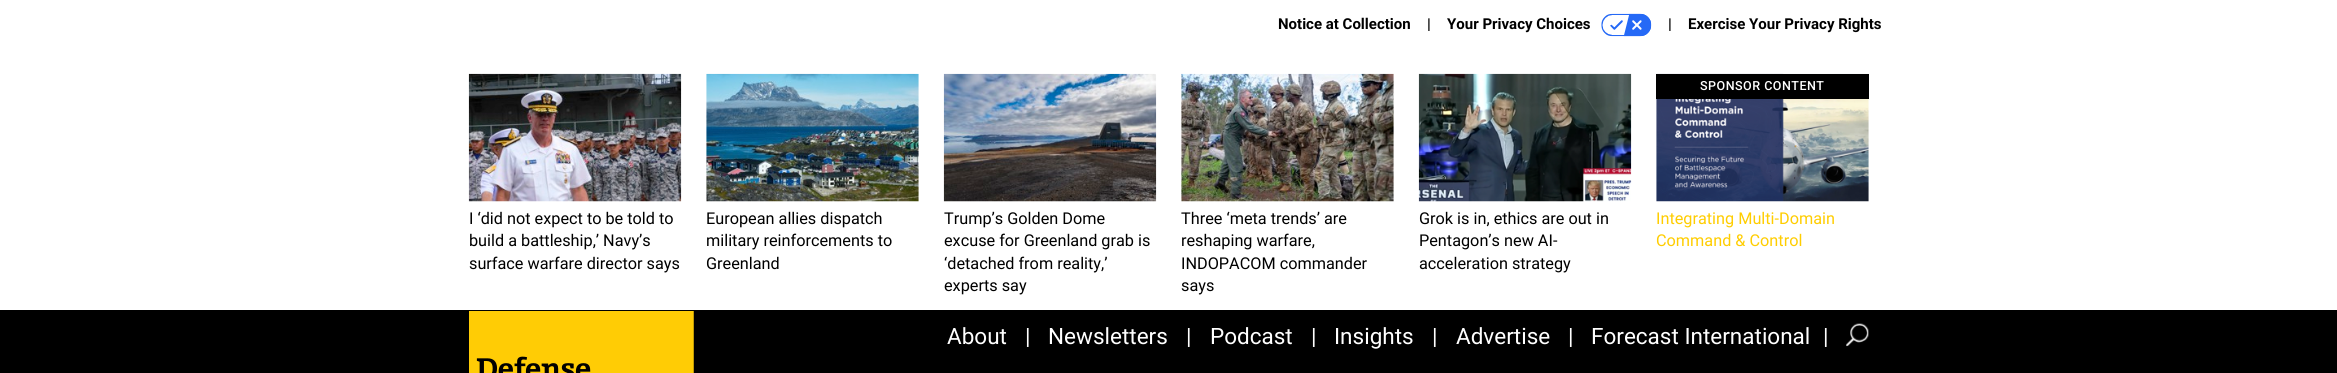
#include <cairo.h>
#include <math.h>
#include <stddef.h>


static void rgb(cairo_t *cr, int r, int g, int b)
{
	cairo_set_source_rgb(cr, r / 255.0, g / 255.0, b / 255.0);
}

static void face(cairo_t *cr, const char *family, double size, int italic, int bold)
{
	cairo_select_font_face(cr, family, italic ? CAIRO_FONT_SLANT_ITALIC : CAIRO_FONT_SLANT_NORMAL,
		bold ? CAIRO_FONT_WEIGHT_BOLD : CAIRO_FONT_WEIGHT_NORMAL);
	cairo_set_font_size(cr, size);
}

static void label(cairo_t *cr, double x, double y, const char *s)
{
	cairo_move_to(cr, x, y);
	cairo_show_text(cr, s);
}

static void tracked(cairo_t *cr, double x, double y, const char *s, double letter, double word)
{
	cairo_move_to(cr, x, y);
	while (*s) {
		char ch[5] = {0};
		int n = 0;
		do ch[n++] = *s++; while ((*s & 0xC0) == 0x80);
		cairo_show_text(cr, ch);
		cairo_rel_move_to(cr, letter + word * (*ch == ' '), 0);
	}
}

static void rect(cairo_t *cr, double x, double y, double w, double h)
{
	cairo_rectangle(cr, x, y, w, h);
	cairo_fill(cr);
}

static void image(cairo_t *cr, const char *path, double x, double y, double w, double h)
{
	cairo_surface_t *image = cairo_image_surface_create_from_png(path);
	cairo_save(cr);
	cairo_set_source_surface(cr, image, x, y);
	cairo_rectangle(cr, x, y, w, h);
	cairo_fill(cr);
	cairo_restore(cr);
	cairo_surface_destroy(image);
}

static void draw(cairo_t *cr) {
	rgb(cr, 255, 255, 255);
	cairo_paint(cr);
	face(cr, "Roboto", 15, 0, 1);
	rgb(cr, 0, 0, 0);
	label(cr, 1278, 29, "Notice at Collection");
	label(cr, 1427, 29, "|");
	label(cr, 1447, 29, "Your Privacy Choices");
	image(cr, "image0.png", 1601, 13, 51, 24);
	label(cr, 1668, 29, "|");
	label(cr, 1688, 29, "Exercise Your Privacy Rights");
	image(cr, "image1.png", 468, 73, 214, 129);
	face(cr, "Roboto", 16.25, 0, 0);
	label(cr, 469, 224, "I ‘did not expect to be told to");
	label(cr, 469, 246, "build a battleship,’ Navy’s");
	label(cr, 469, 269, "surface warfare director says");
	image(cr, "image2.png", 706, 73, 213, 129);
	label(cr, 706, 224, "European allies dispatch");
	label(cr, 706, 246, "military reinforcements to");
	label(cr, 706, 269, "Greenland");
	image(cr, "image3.png", 943, 73, 214, 129);
	label(cr, 944, 224, "Trump’s Golden Dome");
	label(cr, 944, 246, "excuse for Greenland grab is");
	label(cr, 944, 269, "‘detached from reality,’");
	label(cr, 944, 291, "experts say");
	image(cr, "image4.png", 1181, 73, 213, 129);
	label(cr, 1181, 224, "Three ‘meta trends’ are");
	label(cr, 1181, 246, "reshaping warfare,");
	label(cr, 1181, 269, "INDOPACOM commander");
	label(cr, 1181, 291, "says");
	image(cr, "image5.png", 1418, 73, 214, 129);
	label(cr, 1419, 224, "Grok is in, ethics are out in");
	label(cr, 1419, 246, "Pentagon’s new AI-");
	label(cr, 1419, 269, "acceleration strategy");
	image(cr, "image6.png", 1656, 73, 213, 129);
	rect(cr, 1656, 74, 213, 25);
	face(cr, "Roboto Medium", 12.5, 0, 0);
	rgb(cr, 255, 255, 255);
	tracked(cr, 1700, 90, "SPONSOR CONTENT", 0.5, 0);
	face(cr, "Roboto", 16.25, 0, 0);
	rgb(cr, 255, 205, 0);
	label(cr, 1656, 224, "Integrating Multi-Domain");
	label(cr, 1656, 246, "Command & Control");
	rgb(cr, 0, 0, 0);
	rect(cr, 0, 310, 2337, 63);
	image(cr, "image7.png", 469, 311, 225, 62);
	face(cr, "Roboto", 22.5, 0, 0);
	rgb(cr, 255, 255, 255);
	label(cr, 947, 344, "About");
	label(cr, 1025, 344, "|");
	label(cr, 1048, 344, "Newsletters");
	label(cr, 1186, 344, "|");
	label(cr, 1210, 344, "Podcast");
	label(cr, 1311, 344, "|");
	label(cr, 1334, 344, "Insights");
	label(cr, 1432, 344, "|");
	label(cr, 1456, 344, "Advertise");
	label(cr, 1568, 344, "|");
	label(cr, 1591, 344, "Forecast International");
	label(cr, 1823, 344, "|");
	image(cr, "image8.png", 1846, 323, 23, 24);
}

int main(void) {
	cairo_surface_t *surface = cairo_image_surface_create(CAIRO_FORMAT_RGB24, 2337, 373);
	cairo_t *cr = cairo_create(surface);
	cairo_font_options_t *options = cairo_font_options_create();
	cairo_font_options_set_hint_metrics(options, CAIRO_HINT_METRICS_OFF);
	cairo_font_options_set_hint_style(options, CAIRO_HINT_STYLE_NONE);
	cairo_set_font_options(cr, options);
	cairo_set_miter_limit(cr, 4);
	draw(cr);
	cairo_surface_write_to_png(surface, "render.png");
	cairo_font_options_destroy(options);
	cairo_destroy(cr);
	cairo_surface_destroy(surface);
	return 0;
}
